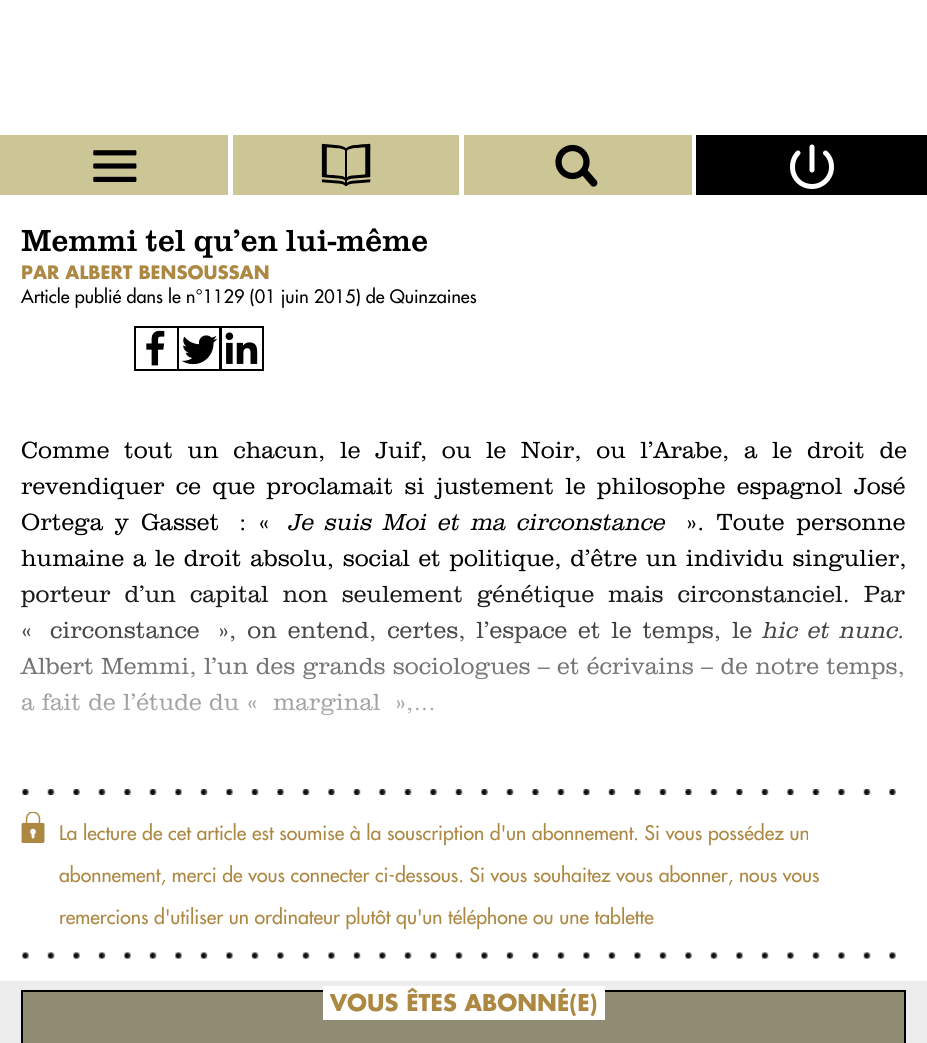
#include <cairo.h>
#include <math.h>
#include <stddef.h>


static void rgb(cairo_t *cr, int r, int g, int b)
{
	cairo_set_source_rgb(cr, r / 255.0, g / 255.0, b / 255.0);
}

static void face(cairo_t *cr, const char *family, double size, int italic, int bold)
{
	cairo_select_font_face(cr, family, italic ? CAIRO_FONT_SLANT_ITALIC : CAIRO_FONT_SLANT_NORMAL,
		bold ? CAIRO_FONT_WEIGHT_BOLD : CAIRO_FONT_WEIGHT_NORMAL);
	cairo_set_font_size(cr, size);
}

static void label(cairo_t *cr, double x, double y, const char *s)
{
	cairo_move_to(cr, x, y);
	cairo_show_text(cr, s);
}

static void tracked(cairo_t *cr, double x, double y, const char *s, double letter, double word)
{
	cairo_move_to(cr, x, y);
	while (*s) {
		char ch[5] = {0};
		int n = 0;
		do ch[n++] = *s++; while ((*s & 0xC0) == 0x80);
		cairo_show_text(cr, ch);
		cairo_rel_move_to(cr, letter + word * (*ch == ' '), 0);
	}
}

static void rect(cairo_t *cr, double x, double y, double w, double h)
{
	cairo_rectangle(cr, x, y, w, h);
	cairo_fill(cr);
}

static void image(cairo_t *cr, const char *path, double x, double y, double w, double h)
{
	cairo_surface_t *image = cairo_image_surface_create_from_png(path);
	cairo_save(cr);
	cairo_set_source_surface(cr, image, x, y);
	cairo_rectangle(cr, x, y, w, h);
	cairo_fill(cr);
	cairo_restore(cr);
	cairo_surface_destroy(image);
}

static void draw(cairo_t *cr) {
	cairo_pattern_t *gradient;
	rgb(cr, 255, 255, 255);
	cairo_paint(cr);
	rgb(cr, 204, 197, 150);
	rect(cr, 0, 135, 228, 60);
	image(cr, "image0.png", 93, 150, 44, 32);
	rect(cr, 233, 135, 226, 60);
	image(cr, "image1.png", 321, 143, 50, 44);
	rect(cr, 464, 135, 228, 60);
	image(cr, "image2.png", 555, 144, 43, 43);
	rgb(cr, 0, 0, 0);
	rect(cr, 696, 135, 231, 60);
	cairo_new_path(cr);
	cairo_move_to(cr, 825.5, 153);
	cairo_curve_to(cr, 829.5, 156.5, 831.5, 161.5, 831.5, 167);
	cairo_curve_to(cr, 831.5, 178, 822.5, 186.5, 812, 186.5);
	cairo_curve_to(cr, 801, 186.5, 792.5, 178, 792.5, 167);
	cairo_curve_to(cr, 792.5, 161.5, 794.5, 156.5, 798, 153);
	cairo_move_to(cr, 812, 147);
	cairo_line_to(cr, 812, 170);
	rgb(cr, 255, 255, 255);
	cairo_set_line_width(cr, 5);
	cairo_set_line_cap(cr, CAIRO_LINE_CAP_ROUND);
	cairo_stroke(cr);
	face(cr, "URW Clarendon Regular", 31.5, 0, 0);
	rgb(cr, 0, 0, 0);
	label(cr, 21, 251, "Memmi tel qu’en lui-même");
	face(cr, "Futura", 18, 0, 1);
	rgb(cr, 172, 136, 66);
	label(cr, 21, 279, "PAR ALBERT BENSOUSSAN");
	face(cr, "Futura Medium", 18, 0, 0);
	rgb(cr, 0, 0, 0);
	label(cr, 21, 303, "Article publié dans le n°1129 (01 juin 2015) de Quinzaines");
	cairo_rectangle(cr, 135, 327, 43, 43);
	cairo_set_line_width(cr, 2);
	cairo_set_line_cap(cr, CAIRO_LINE_CAP_BUTT);
	cairo_stroke(cr);
	image(cr, "image3.png", 146, 330, 19, 36);
	cairo_rectangle(cr, 178, 327, 43, 43);
	cairo_stroke(cr);
	image(cr, "image4.png", 182, 335, 35, 30);
	cairo_rectangle(cr, 220, 327, 43, 43);
	cairo_stroke(cr);
	image(cr, "image5.png", 225, 332, 33, 32);
	face(cr, "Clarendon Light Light", 24, 0, 0);
	tracked(cr, 21, 458, "Comme tout un chacun, le Juif, ou le Noir, ou l’Arabe, a le droit de", 0, 7.25);
	tracked(cr, 21, 494, "revendiquer ce que proclamait si justement le philosophe espagnol José", 0, 4);
	tracked(cr, 21, 530, "Ortega y Gasset", 0, 4.75);
	tracked(cr, 239, 530, ": «", 0, 4.75);
	face(cr, "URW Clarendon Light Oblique", 24, 0, 0);
	tracked(cr, 289, 530, "Je suis Moi et ma circonstance", 0, 4.75);
	face(cr, "Clarendon Light Light", 24, 0, 0);
	tracked(cr, 686, 530, "». Toute personne", 0, 4.75);
	tracked(cr, 21, 566, "humaine a le droit absolu, social et politique, d’être un individu singulier,", 0, 1.25);
	tracked(cr, 21, 602, "porteur d’un capital non seulement génétique mais circonstanciel. Par", 0, 6.5);
	tracked(cr, 21, 638, "«", 0, 3.5);
	tracked(cr, 50, 638, "circonstance", 0, 3.5);
	tracked(cr, 218, 638, "», on entend, certes, l’espace et le temps, le", 0, 3.5);
	face(cr, "URW Clarendon Light Oblique", 24, 0, 0);
	tracked(cr, 763, 638, "hic et nunc.", 0, 3.5);
	face(cr, "Clarendon Light Light", 24, 0, 0);
	label(cr, 21, 674, "Albert Memmi, l’un des grands sociologues – et écrivains – de notre temps,");
	label(cr, 21, 710, "a fait de l’étude du «");
	label(cr, 273, 710, "marginal");
	label(cr, 395, 710, "»,...");
	gradient = cairo_pattern_create_linear(464, 577, 464, 941);
	cairo_pattern_add_color_stop_rgba(gradient, 0, 1, 1, 1, 0);
	cairo_pattern_add_color_stop_rgba(gradient, 0.47, 1, 1, 1, 0.87);
	cairo_pattern_add_color_stop_rgba(gradient, 0.95, 1, 1, 1, 1);
	cairo_pattern_add_color_stop_rgba(gradient, 0.96, 1, 1, 1, 1);
	cairo_set_source(cr, gradient);
	cairo_pattern_destroy(gradient);
	rect(cr, 21, 585, 885, 131);
	image(cr, "image6.png", 22, 789, 874, 6);
	image(cr, "image7.png", 21, 812, 24, 31);
	face(cr, "Futura Medium", 19.5, 0, 0);
	rgb(cr, 172, 136, 66);
	label(cr, 59, 840, "La lecture de cet article est soumise à la souscription d'un abonnement. Si vous possédez un");
	label(cr, 59, 882, "abonnement, merci de vous connecter ci-dessous. Si vous souhaitez vous abonner, nous vous");
	label(cr, 59, 924, "remercions d'utiliser un ordinateur plutôt qu'un téléphone ou une tablette");
	image(cr, "image8.png", 22, 952, 874, 7);
	rgb(cr, 237, 237, 237);
	rect(cr, 0, 981, 927, 62);
	rgb(cr, 144, 140, 116);
	cairo_rectangle(cr, 22, 991, 883, 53);
	cairo_fill_preserve(cr);
	rgb(cr, 0, 0, 0);
	cairo_stroke(cr);
	rgb(cr, 255, 255, 255);
	rect(cr, 323, 986, 282, 34);
	face(cr, "Futura", 22.5, 0, 1);
	rgb(cr, 172, 136, 66);
	label(cr, 330, 1011, "VOUS ÊTES ABONNÉ(E)");
}

int main(void) {
	cairo_surface_t *surface = cairo_image_surface_create(CAIRO_FORMAT_RGB24, 927, 1043);
	cairo_t *cr = cairo_create(surface);
	cairo_font_options_t *options = cairo_font_options_create();
	cairo_font_options_set_hint_metrics(options, CAIRO_HINT_METRICS_OFF);
	cairo_font_options_set_hint_style(options, CAIRO_HINT_STYLE_NONE);
	cairo_set_font_options(cr, options);
	cairo_set_miter_limit(cr, 4);
	draw(cr);
	cairo_surface_write_to_png(surface, "render.png");
	cairo_font_options_destroy(options);
	cairo_destroy(cr);
	cairo_surface_destroy(surface);
	return 0;
}
